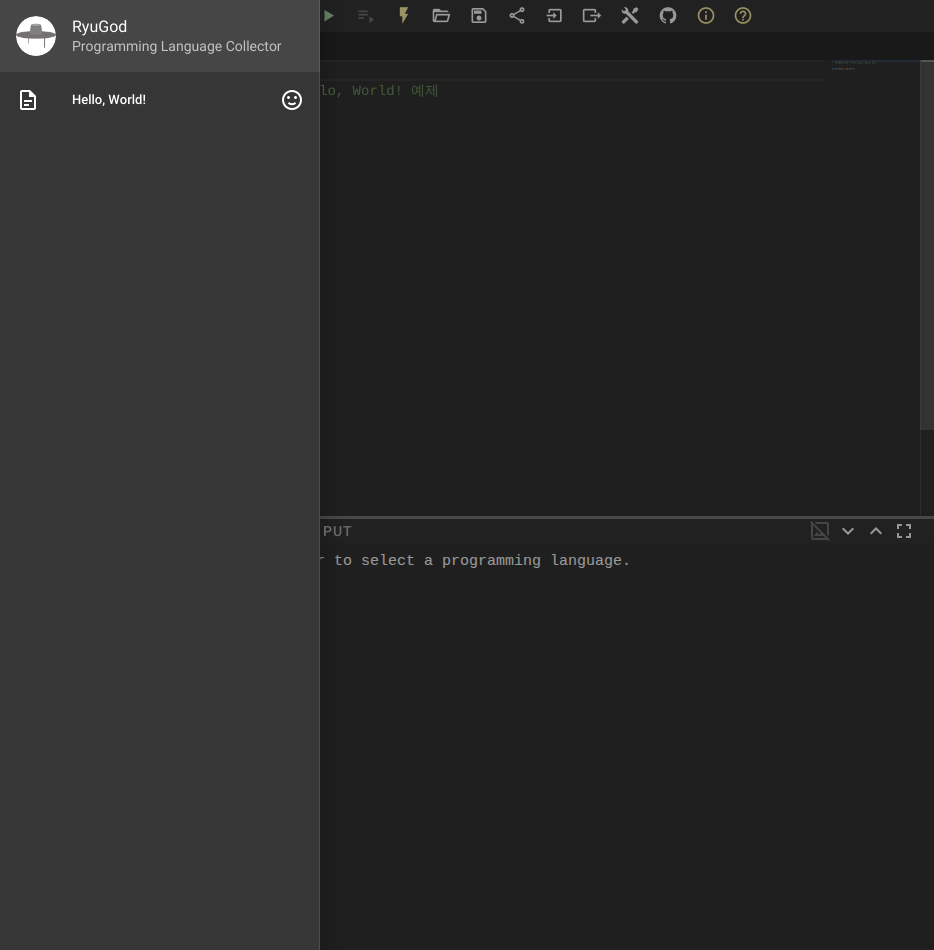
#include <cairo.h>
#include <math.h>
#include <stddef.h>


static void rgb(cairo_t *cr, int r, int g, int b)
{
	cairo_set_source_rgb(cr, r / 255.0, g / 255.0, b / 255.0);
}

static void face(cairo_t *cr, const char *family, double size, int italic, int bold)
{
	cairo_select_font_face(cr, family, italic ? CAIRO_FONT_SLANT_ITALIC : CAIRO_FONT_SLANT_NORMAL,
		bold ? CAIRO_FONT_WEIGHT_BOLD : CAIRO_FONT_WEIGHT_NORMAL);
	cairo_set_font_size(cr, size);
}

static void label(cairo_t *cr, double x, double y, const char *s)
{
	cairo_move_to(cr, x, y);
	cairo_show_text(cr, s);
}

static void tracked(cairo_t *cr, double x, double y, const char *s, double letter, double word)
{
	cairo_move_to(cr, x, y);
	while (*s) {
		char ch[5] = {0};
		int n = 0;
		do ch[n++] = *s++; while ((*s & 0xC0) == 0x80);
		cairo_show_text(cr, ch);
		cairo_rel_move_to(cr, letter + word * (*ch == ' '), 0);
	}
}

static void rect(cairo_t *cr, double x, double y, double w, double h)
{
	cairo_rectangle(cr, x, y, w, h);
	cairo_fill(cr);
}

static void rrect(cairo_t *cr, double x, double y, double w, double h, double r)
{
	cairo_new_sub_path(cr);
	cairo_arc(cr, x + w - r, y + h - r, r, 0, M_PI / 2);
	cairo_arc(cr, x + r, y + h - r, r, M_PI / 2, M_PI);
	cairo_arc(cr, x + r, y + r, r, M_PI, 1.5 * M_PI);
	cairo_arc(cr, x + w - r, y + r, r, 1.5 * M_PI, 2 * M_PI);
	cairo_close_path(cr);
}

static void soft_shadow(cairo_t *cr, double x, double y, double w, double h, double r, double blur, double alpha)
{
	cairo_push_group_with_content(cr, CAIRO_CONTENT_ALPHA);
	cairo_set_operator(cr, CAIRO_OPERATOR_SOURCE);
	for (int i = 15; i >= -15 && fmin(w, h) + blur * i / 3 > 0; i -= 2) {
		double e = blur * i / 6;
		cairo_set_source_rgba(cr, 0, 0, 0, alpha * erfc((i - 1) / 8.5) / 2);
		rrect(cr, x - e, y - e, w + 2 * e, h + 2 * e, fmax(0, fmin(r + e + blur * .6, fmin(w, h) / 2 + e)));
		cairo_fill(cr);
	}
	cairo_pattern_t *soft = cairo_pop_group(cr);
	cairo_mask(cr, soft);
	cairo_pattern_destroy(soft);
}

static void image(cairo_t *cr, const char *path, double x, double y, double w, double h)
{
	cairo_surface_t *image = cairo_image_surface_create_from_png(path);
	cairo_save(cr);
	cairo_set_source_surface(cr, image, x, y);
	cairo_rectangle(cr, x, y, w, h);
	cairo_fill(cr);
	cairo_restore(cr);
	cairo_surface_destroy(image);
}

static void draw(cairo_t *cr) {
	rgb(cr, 25, 25, 25);
	cairo_paint(cr);
	rgb(cr, 33, 33, 33);
	rect(cr, 320, 0, 614, 32);
	rgb(cr, 104, 131, 105);
	cairo_new_path(cr);
	cairo_move_to(cr, 324.5, 10);
	cairo_line_to(cr, 324.5, 21.5);
	cairo_line_to(cr, 334, 15.5);
	cairo_close_path(cr);
	cairo_fill(cr);
	image(cr, "image3.png", 358, 10, 16, 13);
	rgb(cr, 31, 31, 31);
	rect(cr, 320, 60, 600, 456);
	cairo_rectangle(cr, 90, 61, 747, 19);
	rgb(cr, 37, 37, 37);
	cairo_stroke(cr);
	rgb(cr, 72, 72, 72);
	rect(cr, 320, 516, 614, 3);
	rgb(cr, 33, 33, 33);
	rect(cr, 320, 519, 614, 24);
	rgb(cr, 31, 31, 31);
	rect(cr, 320, 543, 614, 407);
	image(cr, "image20.png", 320, 554, 309, 14);
	rgb(cr, 0, 0, 0);
	soft_shadow(cr, -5, 1, 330, 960, 0, 15, 0.12);
	soft_shadow(cr, -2, 14, 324, 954, 0, 12, 0.14);
	rgb(cr, 54, 54, 54);
	rect(cr, 0, 0, 320, 950);
	cairo_set_source_rgba(cr, 1, 1, 1, 0.08);
	rect(cr, 0, 0, 320, 72);
	image(cr, "image0.png", 16, 16, 40, 40);
	face(cr, "Roboto", 16, 0, 0);
	rgb(cr, 255, 255, 255);
	label(cr, 72, 32, "RyuGod");
	face(cr, "Roboto", 14, 0, 0);
	rgb(cr, 195, 195, 195);
	label(cr, 72, 51, "Programming Language Collector");
	cairo_set_source_rgba(cr, 1, 1, 1, 0.12);
	rect(cr, 319, 0, 1, 950);
	image(cr, "image1.png", 20, 90, 16, 20);
	face(cr, "Roboto Medium", 13, 0, 0);
	rgb(cr, 255, 255, 255);
	label(cr, 72, 104, "Hello, World!");
	image(cr, "image2.png", 282, 90, 20, 20);
	image(cr, "image4.png", 399, 7, 10, 17);
	image(cr, "image5.png", 432, 8, 19, 15);
	image(cr, "image6.png", 471, 8, 16, 15);
	image(cr, "image7.png", 509, 7, 16, 17);
	image(cr, "image8.png", 546, 8, 16, 15);
	image(cr, "image9.png", 582, 8, 20, 15);
	image(cr, "image10.png", 621, 7, 18, 17);
	image(cr, "image11.png", 659, 7, 18, 17);
	image(cr, "image12.png", 697, 7, 18, 17);
	image(cr, "image13.png", 734, 7, 18, 17);
	image(cr, "image14.png", 824, 60, 52, 21);
	cairo_set_source_rgba(cr, 0.141, 0.227, 0.314, 0.5);
	rect(cr, 832, 60, 88, 2);
	image(cr, "image15.png", 920, 60, 14, 456);
	face(cr, "Liberation Mono", 14, 0, 0);
	rgb(cr, 67, 90, 57);
	label(cr, 319, 95, "lo, World!");
	face(cr, "WenQuanYi Zen Hei Medium", 14, 0, 0);
	label(cr, 411, 95, "예제");
	cairo_set_source_rgba(cr, 0.318, 0.318, 0.318, 0.4);
	rect(cr, 920, 60, 14, 370);
	face(cr, "Roboto Medium", 14, 0, 0);
	rgb(cr, 105, 105, 105);
	tracked(cr, 323, 536, "PUT", 1, 0);
	image(cr, "image16.png", 810, 521, 20, 20);
	image(cr, "image17.png", 842, 527, 12, 8);
	image(cr, "image18.png", 870, 527, 12, 8);
	image(cr, "image19.png", 897, 524, 14, 14);
}

int main(void) {
	cairo_surface_t *surface = cairo_image_surface_create(CAIRO_FORMAT_RGB24, 934, 950);
	cairo_t *cr = cairo_create(surface);
	cairo_font_options_t *options = cairo_font_options_create();
	cairo_font_options_set_hint_metrics(options, CAIRO_HINT_METRICS_OFF);
	cairo_font_options_set_hint_style(options, CAIRO_HINT_STYLE_NONE);
	cairo_set_font_options(cr, options);
	cairo_set_miter_limit(cr, 4);
	draw(cr);
	cairo_surface_write_to_png(surface, "render.png");
	cairo_font_options_destroy(options);
	cairo_destroy(cr);
	cairo_surface_destroy(surface);
	return 0;
}
